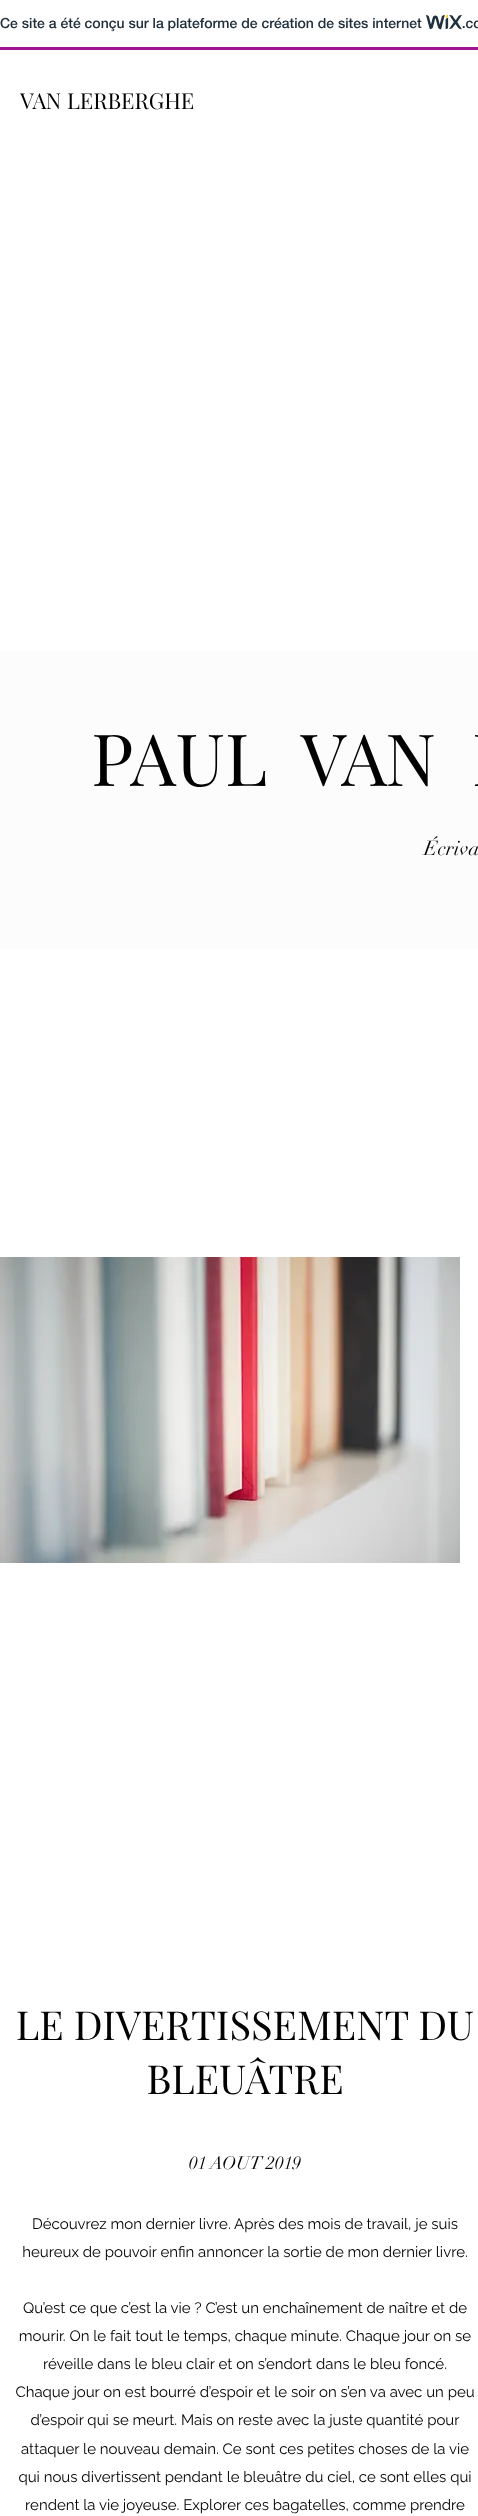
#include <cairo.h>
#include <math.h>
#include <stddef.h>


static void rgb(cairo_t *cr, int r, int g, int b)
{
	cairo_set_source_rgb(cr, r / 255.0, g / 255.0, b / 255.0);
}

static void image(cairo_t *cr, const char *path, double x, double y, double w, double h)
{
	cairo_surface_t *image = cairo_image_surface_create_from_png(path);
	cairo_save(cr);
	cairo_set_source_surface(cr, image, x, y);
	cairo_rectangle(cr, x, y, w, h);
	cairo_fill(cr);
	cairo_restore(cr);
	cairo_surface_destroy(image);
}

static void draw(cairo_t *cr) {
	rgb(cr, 255, 255, 255);
	cairo_paint(cr);
	image(cr, "image0.png", 0, 15, 478, 2499);
}

int main(void) {
	cairo_surface_t *surface = cairo_image_surface_create(CAIRO_FORMAT_RGB24, 478, 2516);
	cairo_t *cr = cairo_create(surface);
	cairo_font_options_t *options = cairo_font_options_create();
	cairo_font_options_set_hint_metrics(options, CAIRO_HINT_METRICS_OFF);
	cairo_font_options_set_hint_style(options, CAIRO_HINT_STYLE_NONE);
	cairo_set_font_options(cr, options);
	cairo_set_miter_limit(cr, 4);
	draw(cr);
	cairo_surface_write_to_png(surface, "render.png");
	cairo_font_options_destroy(options);
	cairo_destroy(cr);
	cairo_surface_destroy(surface);
	return 0;
}
